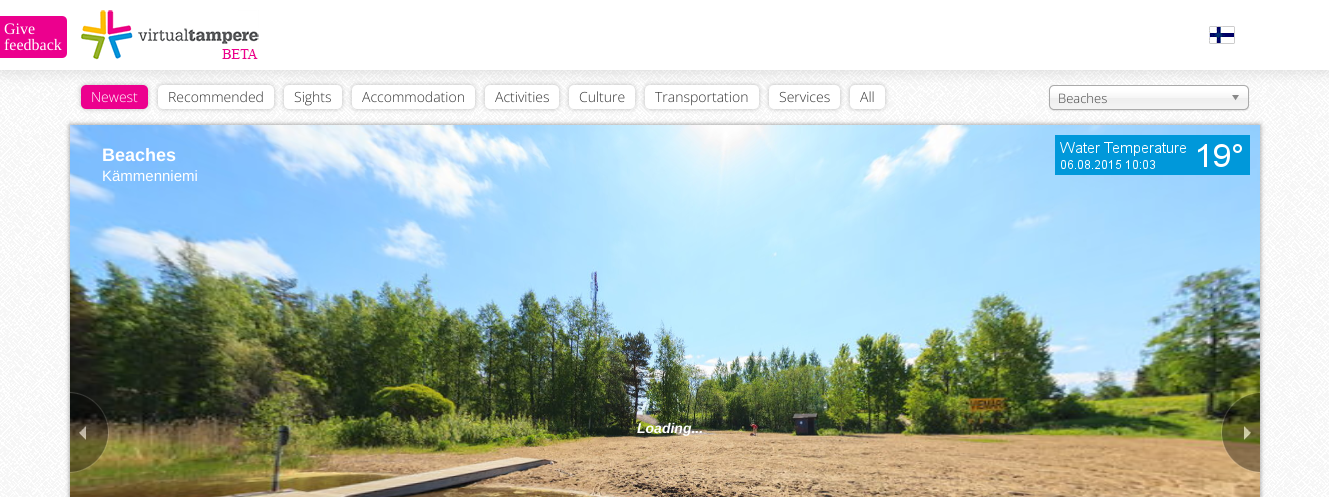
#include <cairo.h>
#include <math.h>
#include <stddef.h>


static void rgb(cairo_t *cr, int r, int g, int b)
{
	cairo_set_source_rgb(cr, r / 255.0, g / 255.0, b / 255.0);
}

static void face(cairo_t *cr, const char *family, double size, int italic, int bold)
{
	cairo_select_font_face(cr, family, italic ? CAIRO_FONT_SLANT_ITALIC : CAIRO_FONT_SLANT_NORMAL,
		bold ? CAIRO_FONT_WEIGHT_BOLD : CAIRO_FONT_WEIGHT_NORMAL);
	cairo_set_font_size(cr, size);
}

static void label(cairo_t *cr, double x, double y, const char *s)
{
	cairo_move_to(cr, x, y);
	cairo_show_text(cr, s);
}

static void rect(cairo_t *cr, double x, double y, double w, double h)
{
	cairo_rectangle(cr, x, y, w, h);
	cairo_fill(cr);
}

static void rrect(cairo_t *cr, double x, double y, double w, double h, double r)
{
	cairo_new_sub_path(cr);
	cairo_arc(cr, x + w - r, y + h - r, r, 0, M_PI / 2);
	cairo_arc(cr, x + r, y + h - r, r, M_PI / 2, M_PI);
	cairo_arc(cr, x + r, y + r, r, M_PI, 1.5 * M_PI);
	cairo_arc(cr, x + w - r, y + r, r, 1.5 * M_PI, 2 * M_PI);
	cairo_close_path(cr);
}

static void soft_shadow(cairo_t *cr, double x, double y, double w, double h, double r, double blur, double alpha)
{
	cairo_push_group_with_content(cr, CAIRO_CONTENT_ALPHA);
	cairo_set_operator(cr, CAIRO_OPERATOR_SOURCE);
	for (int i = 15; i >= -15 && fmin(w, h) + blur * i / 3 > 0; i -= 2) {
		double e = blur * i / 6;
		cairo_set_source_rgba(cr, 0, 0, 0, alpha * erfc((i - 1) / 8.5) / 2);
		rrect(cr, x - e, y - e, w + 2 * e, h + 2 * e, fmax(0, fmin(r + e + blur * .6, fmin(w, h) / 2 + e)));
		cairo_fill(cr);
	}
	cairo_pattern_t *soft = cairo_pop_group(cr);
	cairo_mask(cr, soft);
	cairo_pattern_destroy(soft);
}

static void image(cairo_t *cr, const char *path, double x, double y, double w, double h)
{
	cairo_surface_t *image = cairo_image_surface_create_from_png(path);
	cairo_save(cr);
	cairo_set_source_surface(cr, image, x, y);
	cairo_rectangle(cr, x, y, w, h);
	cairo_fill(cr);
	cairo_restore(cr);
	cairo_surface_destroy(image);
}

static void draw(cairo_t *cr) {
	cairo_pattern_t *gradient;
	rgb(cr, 255, 255, 255);
	cairo_paint(cr);
	image(cr, "image0.png", 0, 70, 1329, 427);
	rgb(cr, 0, 0, 0);
	soft_shadow(cr, 0, 0, 1329, 70, 0, 8.5, 0.15);
	rgb(cr, 255, 255, 255);
	rect(cr, 0, 0, 1329, 70);
	image(cr, "image1.png", 81, 10, 178, 50);
	image(cr, "image2.png", 1209, 26, 26, 18);
	rgb(cr, 236, 0, 142);
	cairo_new_path(cr);
	cairo_move_to(cr, -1, 16);
	cairo_line_to(cr, 62, 16);
	cairo_curve_to(cr, 65, 16, 67, 18, 67, 21);
	cairo_line_to(cr, 67, 53);
	cairo_curve_to(cr, 67, 56, 65, 58, 62, 58);
	cairo_line_to(cr, -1, 58);
	cairo_close_path(cr);
	cairo_fill(cr);
	face(cr, "Liberation Serif", 16, 0, 0);
	rgb(cr, 255, 255, 255);
	label(cr, 4, 34, "Give");
	label(cr, 4, 50, "feedback");
	rgb(cr, 0, 0, 0);
	soft_shadow(cr, 81, 85, 67, 24, 5, 2.5, 0.25);
	rgb(cr, 236, 0, 142);
	rrect(cr, 81, 85, 67, 24, 5);
	cairo_fill(cr);
	face(cr, "Open Sans Light", 14, 0, 0);
	rgb(cr, 255, 255, 255);
	label(cr, 91, 102, "Newest");
	rgb(cr, 0, 0, 0);
	soft_shadow(cr, 158, 85, 116, 24, 5, 2.5, 0.25);
	rgb(cr, 255, 255, 255);
	rrect(cr, 158, 85, 116, 24, 5);
	cairo_fill(cr);
	rgb(cr, 51, 51, 51);
	label(cr, 168, 102, "Recommended");
	rgb(cr, 0, 0, 0);
	soft_shadow(cr, 284, 85, 58, 24, 5, 2.5, 0.25);
	rgb(cr, 255, 255, 255);
	rrect(cr, 284, 85, 58, 24, 5);
	cairo_fill(cr);
	rgb(cr, 51, 51, 51);
	label(cr, 294, 102, "Sights");
	rgb(cr, 0, 0, 0);
	soft_shadow(cr, 352, 85, 123, 24, 5, 2.5, 0.25);
	rgb(cr, 255, 255, 255);
	rrect(cr, 352, 85, 123, 24, 5);
	cairo_fill(cr);
	rgb(cr, 51, 51, 51);
	label(cr, 362, 102, "Accommodation");
	rgb(cr, 0, 0, 0);
	soft_shadow(cr, 485, 85, 74, 24, 5, 2.5, 0.25);
	rgb(cr, 255, 255, 255);
	rrect(cr, 485, 85, 74, 24, 5);
	cairo_fill(cr);
	rgb(cr, 51, 51, 51);
	label(cr, 495, 102, "Activities");
	rgb(cr, 0, 0, 0);
	soft_shadow(cr, 569, 85, 66, 24, 5, 2.5, 0.25);
	rgb(cr, 255, 255, 255);
	rrect(cr, 569, 85, 66, 24, 5);
	cairo_fill(cr);
	rgb(cr, 51, 51, 51);
	label(cr, 579, 102, "Culture");
	rgb(cr, 0, 0, 0);
	soft_shadow(cr, 645, 85, 114, 24, 5, 2.5, 0.25);
	rgb(cr, 255, 255, 255);
	rrect(cr, 645, 85, 114, 24, 5);
	cairo_fill(cr);
	rgb(cr, 51, 51, 51);
	label(cr, 655, 102, "Transportation");
	rgb(cr, 0, 0, 0);
	soft_shadow(cr, 769, 85, 71, 24, 5, 2.5, 0.25);
	rgb(cr, 255, 255, 255);
	rrect(cr, 769, 85, 71, 24, 5);
	cairo_fill(cr);
	rgb(cr, 51, 51, 51);
	label(cr, 779, 102, "Services");
	rgb(cr, 0, 0, 0);
	soft_shadow(cr, 850, 85, 35, 24, 5, 2.5, 0.25);
	rgb(cr, 255, 255, 255);
	rrect(cr, 850, 85, 35, 24, 5);
	cairo_fill(cr);
	rgb(cr, 51, 51, 51);
	label(cr, 860, 102, "All");
	rgb(cr, 0, 0, 0);
	soft_shadow(cr, 1049, 86, 200, 25, 5, 0.5, 0.1);
	gradient = cairo_pattern_create_linear(1149, 86, 1149, 109);
	cairo_pattern_add_color_stop_rgba(gradient, 0.2, 1, 1, 1, 1);
	cairo_pattern_add_color_stop_rgba(gradient, 0.5, 0.965, 0.965, 0.965, 1);
	cairo_pattern_add_color_stop_rgba(gradient, 0.52, 0.933, 0.933, 0.933, 1);
	cairo_pattern_add_color_stop_rgba(gradient, 1, 0.957, 0.957, 0.957, 1);
	cairo_set_source(cr, gradient);
	cairo_pattern_destroy(gradient);
	rrect(cr, 1050, 86, 198, 23, 4);
	cairo_fill(cr);
	rrect(cr, 1049.5, 85.5, 199, 24, 4.5);
	rgb(cr, 170, 170, 170);
	cairo_set_line_width(cr, 1);
	cairo_stroke(cr);
	face(cr, "Open Sans Light", 13, 0, 0);
	rgb(cr, 68, 68, 68);
	label(cr, 1058, 103, "Beaches");
	image(cr, "image3.png", 1232, 95, 7, 6);
	rgb(cr, 0, 0, 0);
	soft_shadow(cr, 70, 125, 1190, 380, 0, 2.5, 0.45);
	image(cr, "image4.png", 70, 125, 1190, 372);
	face(cr, "Liberation Sans", 18, 0, 1);
	rgb(cr, 255, 255, 255);
	label(cr, 102, 161, "Beaches");
	image(cr, "image5.png", 1055, 135, 195, 40);
	face(cr, "Liberation Sans", 15, 0, 0);
	label(cr, 102, 181, "Kämmenniemi");
	image(cr, "image6.png", 70, 392, 39, 81);
	face(cr, "Liberation Sans", 14, 1, 1);
	label(cr, 637, 433, "Loading...");
	image(cr, "image7.png", 1221, 392, 39, 81);
}

int main(void) {
	cairo_surface_t *surface = cairo_image_surface_create(CAIRO_FORMAT_RGB24, 1329, 497);
	cairo_t *cr = cairo_create(surface);
	cairo_font_options_t *options = cairo_font_options_create();
	cairo_font_options_set_hint_metrics(options, CAIRO_HINT_METRICS_OFF);
	cairo_font_options_set_hint_style(options, CAIRO_HINT_STYLE_NONE);
	cairo_set_font_options(cr, options);
	cairo_set_miter_limit(cr, 4);
	draw(cr);
	cairo_surface_write_to_png(surface, "render.png");
	cairo_font_options_destroy(options);
	cairo_destroy(cr);
	cairo_surface_destroy(surface);
	return 0;
}
